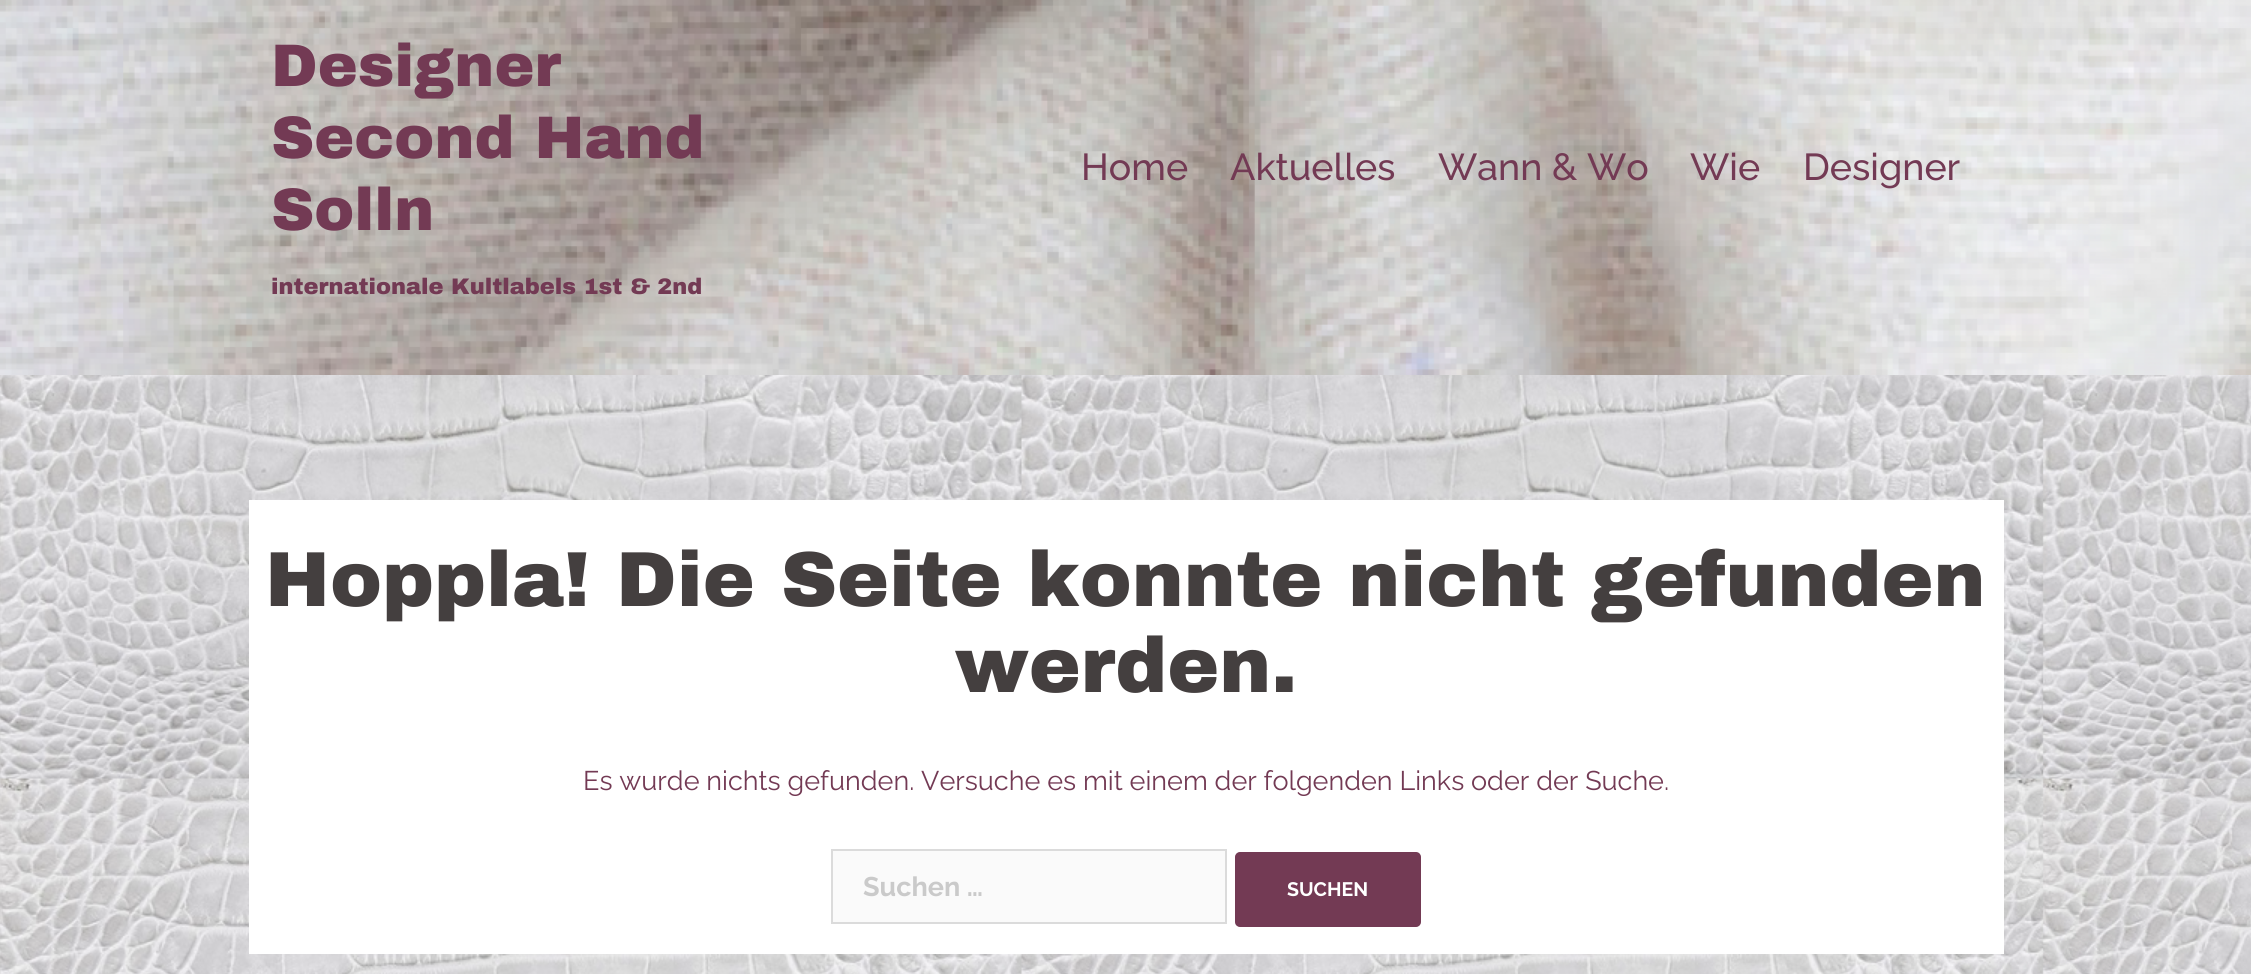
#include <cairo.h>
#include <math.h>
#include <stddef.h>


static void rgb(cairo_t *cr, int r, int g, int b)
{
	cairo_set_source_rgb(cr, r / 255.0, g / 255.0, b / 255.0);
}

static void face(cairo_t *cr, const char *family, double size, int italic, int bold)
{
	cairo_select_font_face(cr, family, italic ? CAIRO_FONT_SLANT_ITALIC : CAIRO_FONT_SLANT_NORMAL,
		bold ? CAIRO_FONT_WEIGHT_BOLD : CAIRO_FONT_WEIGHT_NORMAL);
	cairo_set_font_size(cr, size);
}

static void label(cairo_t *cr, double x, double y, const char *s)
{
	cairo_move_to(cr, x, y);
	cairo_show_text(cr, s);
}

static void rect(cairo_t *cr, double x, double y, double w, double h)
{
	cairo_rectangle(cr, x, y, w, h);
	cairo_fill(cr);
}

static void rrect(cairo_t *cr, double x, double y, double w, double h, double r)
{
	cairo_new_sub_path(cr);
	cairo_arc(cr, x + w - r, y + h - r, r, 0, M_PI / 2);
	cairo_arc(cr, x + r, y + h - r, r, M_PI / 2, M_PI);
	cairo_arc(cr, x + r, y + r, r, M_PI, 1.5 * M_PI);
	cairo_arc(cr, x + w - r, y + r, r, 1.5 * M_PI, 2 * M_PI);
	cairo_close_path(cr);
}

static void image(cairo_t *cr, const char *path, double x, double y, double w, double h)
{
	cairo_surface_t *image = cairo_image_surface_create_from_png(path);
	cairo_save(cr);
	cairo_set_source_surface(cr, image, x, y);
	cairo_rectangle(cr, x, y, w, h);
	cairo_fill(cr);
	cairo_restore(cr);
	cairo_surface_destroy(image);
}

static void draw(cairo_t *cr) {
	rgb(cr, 255, 255, 255);
	cairo_paint(cr);
	image(cr, "image0.png", 0, 375, 2251, 599);
	image(cr, "image1.png", 0, 0, 2251, 375);
	face(cr, "Archivo Black Black", 60, 0, 0);
	rgb(cr, 115, 58, 84);
	label(cr, 271, 86, "Designer");
	label(cr, 271, 158, "Second Hand");
	label(cr, 271, 230, "Solln");
	face(cr, "Archivo Black Black", 22.5, 0, 0);
	label(cr, 271, 294, "internationale Kultlabels 1st & 2nd");
	face(cr, "Raleway Medium", 37.5, 0, 0);
	label(cr, 1081, 180, "Home");
	label(cr, 1230, 180, "Aktuelles");
	label(cr, 1438, 180, "Wann & Wo");
	label(cr, 1690, 180, "Wie");
	label(cr, 1803, 180, "Designer");
	rgb(cr, 255, 255, 255);
	rect(cr, 249, 500, 1755, 454);
	face(cr, "Archivo Black Black", 78, 0, 0);
	rgb(cr, 68, 63, 63);
	label(cr, 265, 606, "Hoppla! Die Seite konnte nicht gefunden");
	label(cr, 955, 692, "werden.");
	face(cr, "Raleway", 27, 0, 0);
	rgb(cr, 115, 58, 84);
	label(cr, 583, 790, "Es wurde nichts gefunden. Versuche es mit einem der folgenden Links oder der Suche.");
	rgb(cr, 250, 250, 250);
	cairo_rectangle(cr, 832, 850, 394, 73);
	cairo_fill_preserve(cr);
	rgb(cr, 219, 219, 219);
	cairo_stroke(cr);
	face(cr, "Raleway", 27, 0, 1);
	rgb(cr, 202, 202, 202);
	label(cr, 863, 896, "Suchen …");
	rgb(cr, 115, 58, 84);
	rrect(cr, 1236, 853, 184, 73, 4);
	cairo_fill_preserve(cr);
	cairo_stroke(cr);
	face(cr, "Raleway", 19.5, 0, 1);
	rgb(cr, 255, 255, 255);
	label(cr, 1287, 896, "SUCHEN");
}

int main(void) {
	cairo_surface_t *surface = cairo_image_surface_create(CAIRO_FORMAT_RGB24, 2251, 974);
	cairo_t *cr = cairo_create(surface);
	cairo_font_options_t *options = cairo_font_options_create();
	cairo_font_options_set_hint_metrics(options, CAIRO_HINT_METRICS_OFF);
	cairo_font_options_set_hint_style(options, CAIRO_HINT_STYLE_NONE);
	cairo_set_font_options(cr, options);
	cairo_set_miter_limit(cr, 4);
	draw(cr);
	cairo_surface_write_to_png(surface, "render.png");
	cairo_font_options_destroy(options);
	cairo_destroy(cr);
	cairo_surface_destroy(surface);
	return 0;
}
